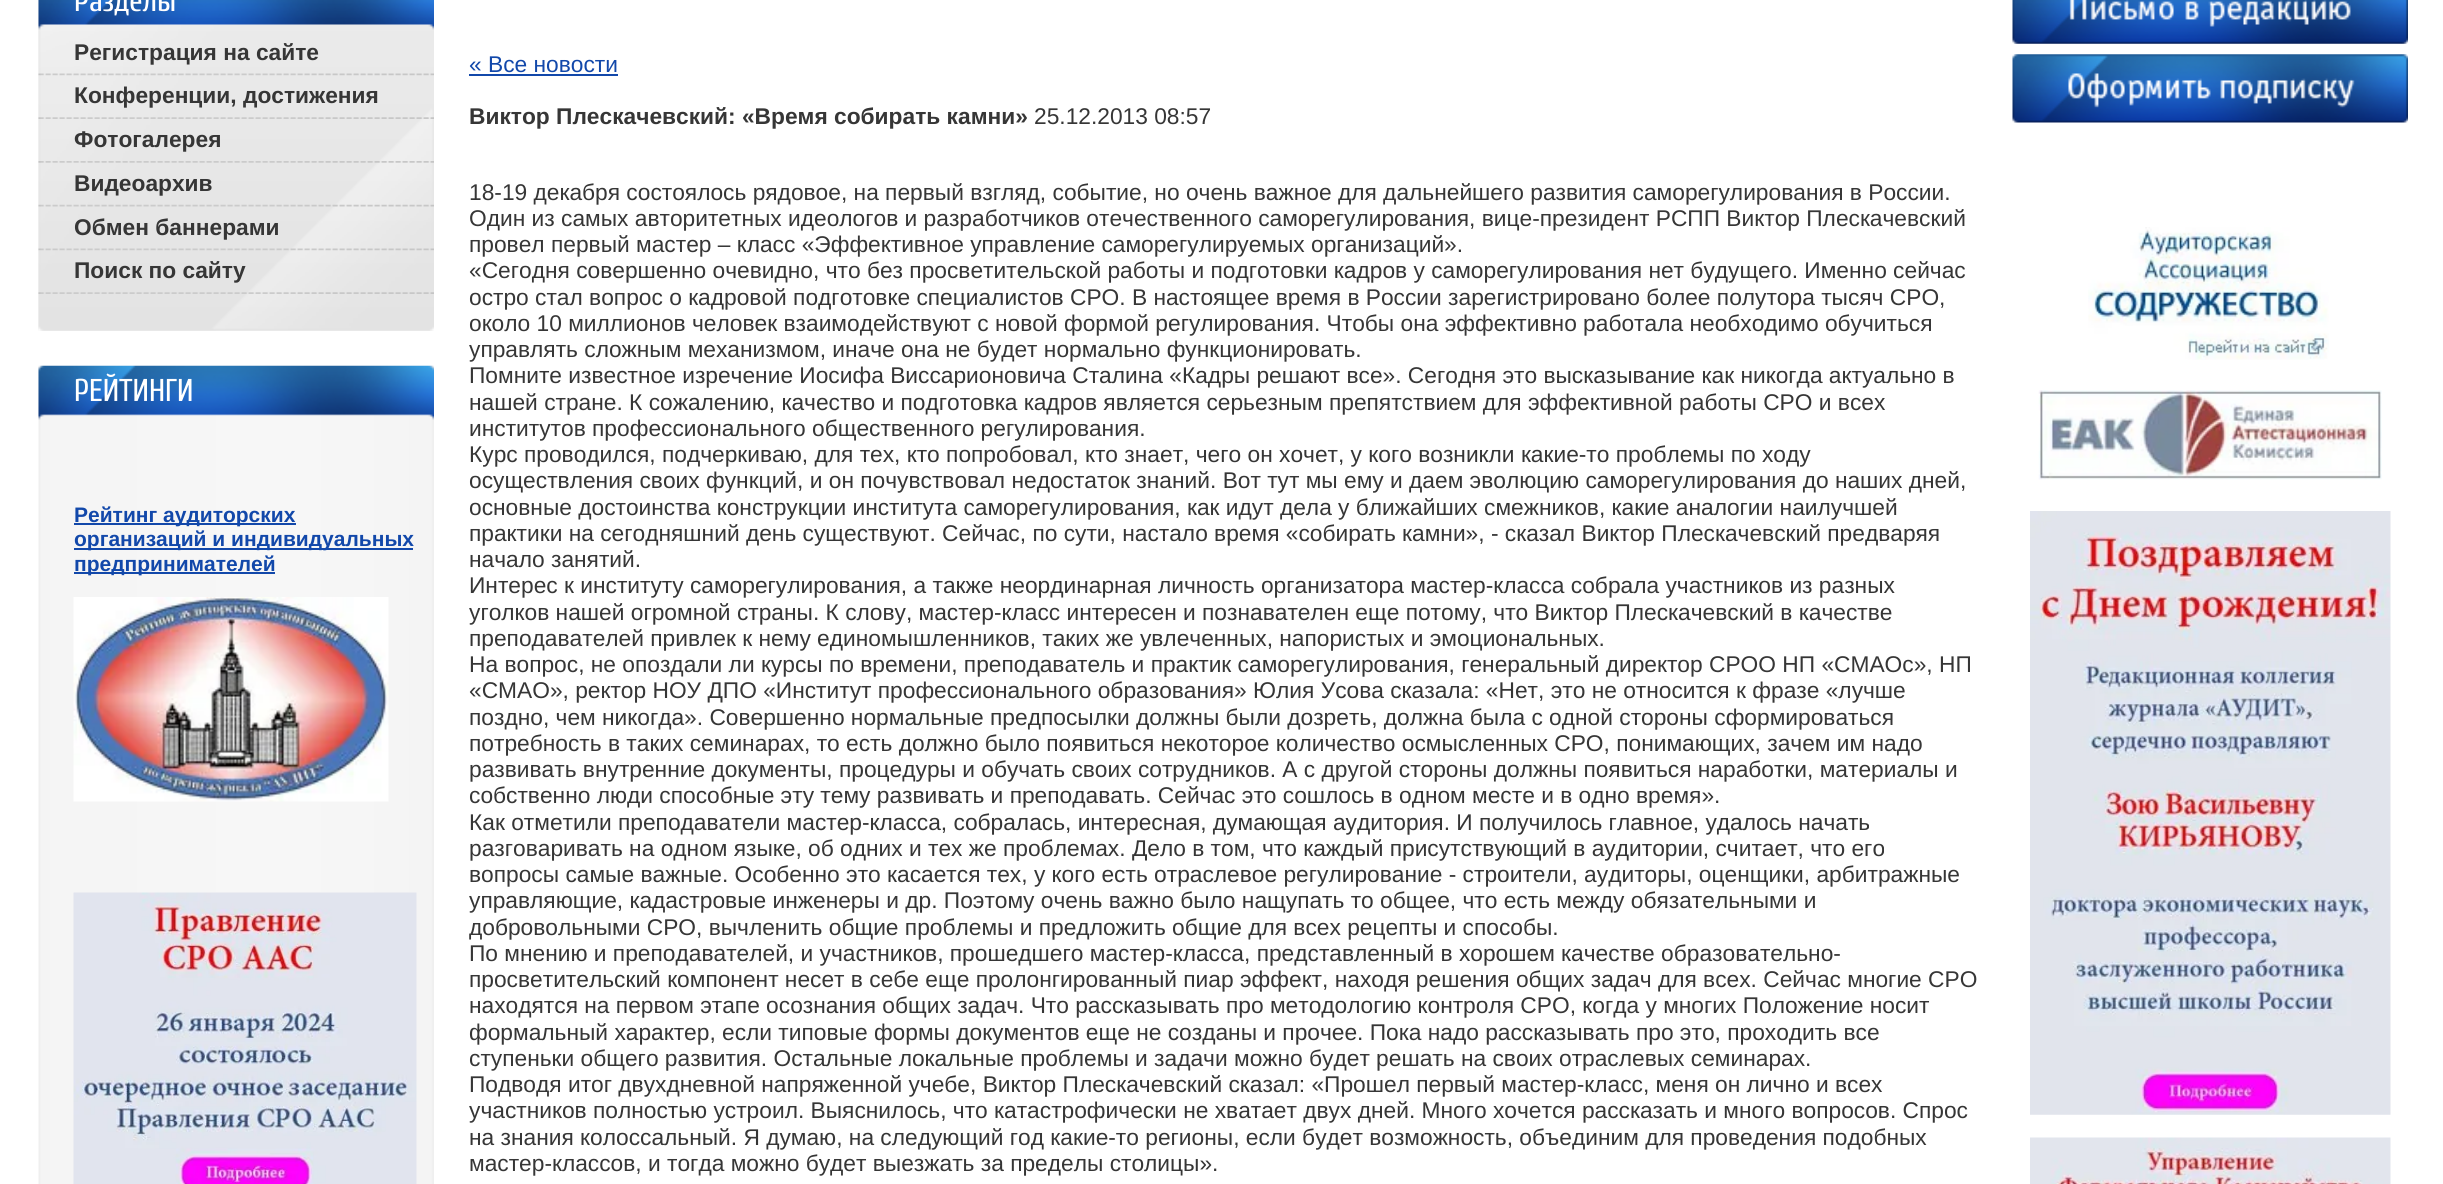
#include <cairo.h>
#include <math.h>
#include <stddef.h>


static void rgb(cairo_t *cr, int r, int g, int b)
{
	cairo_set_source_rgb(cr, r / 255.0, g / 255.0, b / 255.0);
}

static void face(cairo_t *cr, const char *family, double size, int italic, int bold)
{
	cairo_select_font_face(cr, family, italic ? CAIRO_FONT_SLANT_ITALIC : CAIRO_FONT_SLANT_NORMAL,
		bold ? CAIRO_FONT_WEIGHT_BOLD : CAIRO_FONT_WEIGHT_NORMAL);
	cairo_set_font_size(cr, size);
}

static void label(cairo_t *cr, double x, double y, const char *s)
{
	cairo_move_to(cr, x, y);
	cairo_show_text(cr, s);
}

static void rect(cairo_t *cr, double x, double y, double w, double h)
{
	cairo_rectangle(cr, x, y, w, h);
	cairo_fill(cr);
}

static void image(cairo_t *cr, const char *path, double x, double y, double w, double h)
{
	cairo_surface_t *image = cairo_image_surface_create_from_png(path);
	cairo_save(cr);
	cairo_set_source_surface(cr, image, x, y);
	cairo_rectangle(cr, x, y, w, h);
	cairo_fill(cr);
	cairo_restore(cr);
	cairo_surface_destroy(image);
}

static void draw(cairo_t *cr) {
	rgb(cr, 255, 255, 255);
	cairo_paint(cr);
	image(cr, "image0.png", 38, 0, 396, 331);
	image(cr, "image1.png", 38, 0, 396, 331);
	image(cr, "image2.png", 38, 0, 396, 30);
	face(cr, "Cuprum", 31.5, 0, 0);
	rgb(cr, 255, 255, 255);
	label(cr, 74, 11, "Разделы");
	image(cr, "image3.png", 38, 73, 396, 3);
	face(cr, "Liberation Sans", 22.75, 0, 1);
	rgb(cr, 54, 54, 54);
	label(cr, 74, 60, "Регистрация на сайте");
	image(cr, "image4.png", 38, 117, 396, 2);
	label(cr, 74, 103, "Конференции, достижения");
	image(cr, "image5.png", 38, 161, 396, 2);
	label(cr, 74, 147, "Фотогалерея");
	image(cr, "image6.png", 38, 204, 396, 3);
	label(cr, 74, 191, "Видеоархив");
	image(cr, "image7.png", 38, 248, 396, 3);
	label(cr, 74, 235, "Обмен баннерами");
	image(cr, "image8.png", 38, 292, 396, 2);
	label(cr, 74, 278, "Поиск по сайту");
	image(cr, "image9.png", 38, 365, 396, 819);
	image(cr, "image10.png", 38, 365, 396, 55);
	face(cr, "Cuprum", 31.5, 0, 0);
	rgb(cr, 255, 255, 255);
	label(cr, 74, 401, "РЕЙТИНГИ");
	rgb(cr, 18, 72, 170);
	rect(cr, 74, 523, 222, 2);
	face(cr, "Liberation Sans", 21, 0, 1);
	label(cr, 74, 522, "Рейтинг аудиторских");
	rect(cr, 74, 548, 339, 2);
	label(cr, 74, 546, "организаций и индивидуальных");
	rect(cr, 74, 572, 201, 2);
	label(cr, 74, 571, "предпринимателей");
	image(cr, "image11.png", 73, 597, 316, 205);
	image(cr, "image12.png", 73, 892, 344, 292);
	face(cr, "Liberation Sans", 22.75, 0, 0);
	label(cr, 469, 72, "« Все новости");
	rect(cr, 469, 74, 149, 2);
	face(cr, "Liberation Sans", 22.75, 0, 1);
	rgb(cr, 54, 54, 54);
	label(cr, 469, 124, "Виктор Плескачевский: «Время собирать камни»");
	face(cr, "Liberation Sans", 22.75, 0, 0);
	label(cr, 1034, 124, "25.12.2013 08:57");
	label(cr, 469, 200, "18-19 декабря состоялось рядовое, на первый взгляд, событие, но очень важное для дальнейшего развития саморегулирования в России.");
	label(cr, 469, 226, "Один из самых авторитетных идеологов и разработчиков отечественного саморегулирования, вице-президент РСПП Виктор Плескачевский");
	label(cr, 469, 252, "провел первый мастер – класс «Эффективное управление саморегулируемых организаций».");
	label(cr, 469, 278, "«Сегодня совершенно очевидно, что без просветительской работы и подготовки кадров у саморегулирования нет будущего. Именно сейчас");
	label(cr, 469, 305, "остро стал вопрос о кадровой подготовке специалистов СРО. В настоящее время в России зарегистрировано более полутора тысяч СРО,");
	label(cr, 469, 331, "около 10 миллионов человек взаимодействуют с новой формой регулирования. Чтобы она эффективно работала необходимо обучиться");
	label(cr, 469, 357, "управлять сложным механизмом, иначе она не будет нормально функционировать.");
	label(cr, 469, 383, "Помните известное изречение Иосифа Виссарионовича Сталина «Кадры решают все». Сегодня это высказывание как никогда актуально в");
	label(cr, 469, 410, "нашей стране. К сожалению, качество и подготовка кадров является серьезным препятствием для эффективной работы СРО и всех");
	label(cr, 469, 436, "институтов профессионального общественного регулирования.");
	label(cr, 469, 462, "Курс проводился, подчеркиваю, для тех, кто попробовал, кто знает, чего он хочет, у кого возникли какие-то проблемы по ходу");
	label(cr, 469, 488, "осуществления своих функций, и он почувствовал недостаток знаний. Вот тут мы ему и даем эволюцию саморегулирования до наших дней,");
	label(cr, 469, 515, "основные достоинства конструкции института саморегулирования, как идут дела у ближайших смежников, какие аналогии наилучшей");
	label(cr, 469, 541, "практики на сегодняшний день существуют. Сейчас, по сути, настало время «собирать камни», - сказал Виктор Плескачевский предваряя");
	label(cr, 469, 567, "начало занятий.");
	label(cr, 469, 593, "Интерес к институту саморегулирования, а также неординарная личность организатора мастер-класса собрала участников из разных");
	label(cr, 469, 620, "уголков нашей огромной страны. К слову, мастер-класс интересен и познавателен еще потому, что Виктор Плескачевский в качестве");
	label(cr, 469, 646, "преподавателей привлек к нему единомышленников, таких же увлеченных, напористых и эмоциональных.");
	label(cr, 469, 672, "На вопрос, не опоздали ли курсы по времени, преподаватель и практик саморегулирования, генеральный директор СРОО НП «СМАОс», НП");
	label(cr, 469, 698, "«СМАО», ректор НОУ ДПО «Институт профессионального образования» Юлия Усова сказала: «Нет, это не относится к фразе «лучше");
	label(cr, 469, 725, "поздно, чем никогда». Совершенно нормальные предпосылки должны были дозреть, должна была с одной стороны сформироваться");
	label(cr, 469, 751, "потребность в таких семинарах, то есть должно было появиться некоторое количество осмысленных СРО, понимающих, зачем им надо");
	label(cr, 469, 777, "развивать внутренние документы, процедуры и обучать своих сотрудников. А с другой стороны должны появиться наработки, материалы и");
	label(cr, 469, 803, "собственно люди способные эту тему развивать и преподавать. Сейчас это сошлось в одном месте и в одно время».");
	label(cr, 469, 830, "Как отметили преподаватели мастер-класса, собралась, интересная, думающая аудитория. И получилось главное, удалось начать");
	label(cr, 469, 856, "разговаривать на одном языке, об одних и тех же проблемах. Дело в том, что каждый присутствующий в аудитории, считает, что его");
	label(cr, 469, 882, "вопросы самые важные. Особенно это касается тех, у кого есть отраслевое регулирование - строители, аудиторы, оценщики, арбитражные");
	label(cr, 469, 908, "управляющие, кадастровые инженеры и др. Поэтому очень важно было нащупать то общее, что есть между обязательными и");
	label(cr, 469, 935, "добровольными СРО, вычленить общие проблемы и предложить общие для всех рецепты и способы.");
	label(cr, 469, 961, "По мнению и преподавателей, и участников, прошедшего мастер-класса, представленный в хорошем качестве образовательно-");
	label(cr, 469, 987, "просветительский компонент несет в себе еще пролонгированный пиар эффект, находя решения общих задач для всех. Сейчас многие СРО");
	label(cr, 469, 1013, "находятся на первом этапе осознания общих задач. Что рассказывать про методологию контроля СРО, когда у многих Положение носит");
	label(cr, 469, 1040, "формальный характер, если типовые формы документов еще не созданы и прочее. Пока надо рассказывать про это, проходить все");
	label(cr, 469, 1066, "ступеньки общего развития. Остальные локальные проблемы и задачи можно будет решать на своих отраслевых семинарах.");
	label(cr, 469, 1092, "Подводя итог двухдневной напряженной учебе, Виктор Плескачевский сказал: «Прошел первый мастер-класс, меня он лично и всех");
	label(cr, 469, 1118, "участников полностью устроил. Выяснилось, что катастрофически не хватает двух дней. Много хочется рассказать и много вопросов. Спрос");
	label(cr, 469, 1145, "на знания колоссальный. Я думаю, на следующий год какие-то регионы, если будет возможность, объединим для проведения подобных");
	label(cr, 469, 1171, "мастер-классов, и тогда можно будет выезжать за пределы столицы».");
	image(cr, "image13.png", 2012, 0, 396, 44);
	image(cr, "image14.png", 2012, 54, 396, 69);
	image(cr, "image15.png", 2088, 227, 241, 133);
	image(cr, "image16.png", 2038, 390, 344, 90);
	image(cr, "image17.png", 2030, 511, 361, 604);
	image(cr, "image18.png", 2030, 1137, 361, 47);
}

int main(void) {
	cairo_surface_t *surface = cairo_image_surface_create(CAIRO_FORMAT_RGB24, 2443, 1184);
	cairo_t *cr = cairo_create(surface);
	cairo_font_options_t *options = cairo_font_options_create();
	cairo_font_options_set_hint_metrics(options, CAIRO_HINT_METRICS_OFF);
	cairo_font_options_set_hint_style(options, CAIRO_HINT_STYLE_NONE);
	cairo_set_font_options(cr, options);
	cairo_set_miter_limit(cr, 4);
	draw(cr);
	cairo_surface_write_to_png(surface, "render.png");
	cairo_font_options_destroy(options);
	cairo_destroy(cr);
	cairo_surface_destroy(surface);
	return 0;
}
